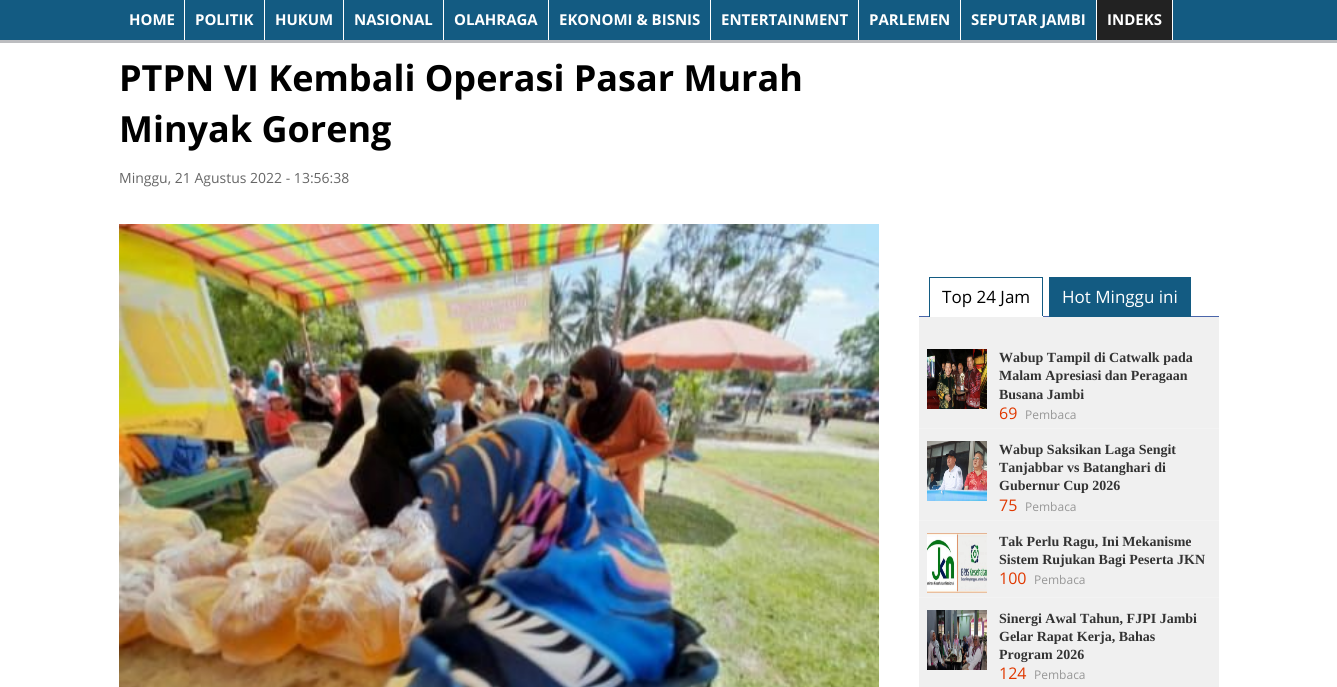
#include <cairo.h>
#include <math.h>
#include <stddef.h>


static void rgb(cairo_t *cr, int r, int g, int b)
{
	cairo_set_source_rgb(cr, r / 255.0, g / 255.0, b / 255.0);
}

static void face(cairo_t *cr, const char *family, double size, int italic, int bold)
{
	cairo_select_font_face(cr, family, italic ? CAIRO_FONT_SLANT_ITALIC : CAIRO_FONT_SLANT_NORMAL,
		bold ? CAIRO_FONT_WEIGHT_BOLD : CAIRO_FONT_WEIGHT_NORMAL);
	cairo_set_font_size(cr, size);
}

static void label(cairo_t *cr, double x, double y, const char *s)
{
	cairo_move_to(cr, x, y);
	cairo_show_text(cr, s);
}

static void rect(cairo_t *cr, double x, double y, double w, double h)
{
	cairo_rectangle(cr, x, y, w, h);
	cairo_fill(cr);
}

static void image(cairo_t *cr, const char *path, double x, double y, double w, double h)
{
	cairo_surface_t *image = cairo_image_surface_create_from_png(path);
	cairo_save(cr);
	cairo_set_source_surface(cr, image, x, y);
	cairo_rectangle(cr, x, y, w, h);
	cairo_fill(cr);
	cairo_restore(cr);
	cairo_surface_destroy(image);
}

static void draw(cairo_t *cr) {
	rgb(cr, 255, 255, 255);
	cairo_paint(cr);
	rgb(cr, 19, 91, 130);
	rect(cr, 0, 0, 1337, 40);
	rgb(cr, 188, 189, 192);
	rect(cr, 0, 40, 1337, 3);
	rgb(cr, 255, 255, 255);
	rect(cr, 184, 0, 1, 40);
	face(cr, "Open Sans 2", 15, 0, 1);
	label(cr, 129, 25, "HOME");
	rect(cr, 264, 0, 1, 40);
	label(cr, 195, 25, "POLITIK");
	rect(cr, 343, 0, 1, 40);
	label(cr, 275, 25, "HUKUM");
	rect(cr, 443, 0, 1, 40);
	label(cr, 354, 25, "NASIONAL");
	rect(cr, 548, 0, 1, 40);
	label(cr, 454, 25, "OLAHRAGA");
	rect(cr, 710, 0, 1, 40);
	label(cr, 559, 25, "EKONOMI & BISNIS");
	rect(cr, 858, 0, 1, 40);
	label(cr, 721, 25, "ENTERTAINMENT");
	rect(cr, 960, 0, 1, 40);
	label(cr, 869, 25, "PARLEMEN");
	rect(cr, 1096, 0, 1, 40);
	label(cr, 971, 25, "SEPUTAR JAMBI");
	rect(cr, 1172, 0, 1, 40);
	rgb(cr, 34, 34, 34);
	rect(cr, 1097, 0, 75, 40);
	rgb(cr, 255, 255, 255);
	label(cr, 1107, 25, "INDEKS");
	face(cr, "Open Sans", 36, 0, 1);
	rgb(cr, 0, 0, 0);
	label(cr, 119, 91, "PTPN VI Kembali Operasi Pasar Murah");
	label(cr, 119, 142, "Minyak Goreng");
	face(cr, "Open Sans", 14, 0, 0);
	rgb(cr, 102, 102, 102);
	label(cr, 119, 183, "Minggu, 21 Agustus 2022 - 13:56:38");
	image(cr, "image0.png", 119, 224, 760, 463);
	rgb(cr, 19, 91, 130);
	rect(cr, 929, 277, 114, 1);
	rgb(cr, 74, 101, 170);
	rect(cr, 919, 316, 300, 1);
	rgb(cr, 19, 91, 130);
	rect(cr, 1042, 277, 1, 40);
	rgb(cr, 255, 255, 255);
	rect(cr, 929, 316, 114, 1);
	rgb(cr, 19, 91, 130);
	rect(cr, 929, 277, 1, 40);
	face(cr, "Open Sans", 17, 0, 0);
	rgb(cr, 0, 0, 0);
	label(cr, 942, 303, "Top 24 Jam");
	rgb(cr, 19, 91, 130);
	rect(cr, 1049, 277, 142, 40);
	rgb(cr, 255, 255, 255);
	label(cr, 1062, 303, "Hot Minggu ini");
	rgb(cr, 240, 240, 240);
	rect(cr, 919, 317, 300, 370);
	rgb(cr, 243, 243, 243);
	rect(cr, 919, 428, 300, 1);
	image(cr, "image1.png", 927, 349, 60, 60);
	face(cr, "Liberation Serif", 14, 0, 1);
	rgb(cr, 51, 51, 51);
	label(cr, 999, 362, "Wabup Tampil di Catwalk pada");
	label(cr, 999, 380, "Malam Apresiasi dan Peragaan");
	label(cr, 999, 399, "Busana Jambi");
	face(cr, "Open Sans", 16, 0, 0);
	rgb(cr, 224, 56, 0);
	label(cr, 999, 419, "69");
	face(cr, "Open Sans", 12, 0, 0);
	rgb(cr, 151, 151, 151);
	label(cr, 1025, 419, "Pembaca");
	rgb(cr, 243, 243, 243);
	rect(cr, 919, 520, 300, 1);
	image(cr, "image2.png", 927, 441, 60, 60);
	face(cr, "Liberation Serif", 14, 0, 1);
	rgb(cr, 51, 51, 51);
	label(cr, 999, 454, "Wabup Saksikan Laga Sengit");
	label(cr, 999, 472, "Tanjabbar vs Batanghari di");
	label(cr, 999, 490, "Gubernur Cup 2026");
	face(cr, "Open Sans", 16, 0, 0);
	rgb(cr, 224, 56, 0);
	label(cr, 999, 511, "75");
	face(cr, "Open Sans", 12, 0, 0);
	rgb(cr, 151, 151, 151);
	label(cr, 1025, 511, "Pembaca");
	rgb(cr, 243, 243, 243);
	rect(cr, 919, 597, 300, 1);
	image(cr, "image3.png", 927, 533, 60, 60);
	face(cr, "Liberation Serif", 14, 0, 1);
	rgb(cr, 51, 51, 51);
	label(cr, 999, 546, "Tak Perlu Ragu, Ini Mekanisme");
	label(cr, 999, 564, "Sistem Rujukan Bagi Peserta JKN");
	face(cr, "Open Sans", 16, 0, 0);
	rgb(cr, 224, 56, 0);
	label(cr, 999, 584, "100");
	face(cr, "Open Sans", 12, 0, 0);
	rgb(cr, 151, 151, 151);
	label(cr, 1034, 584, "Pembaca");
	image(cr, "image4.png", 927, 610, 60, 60);
	face(cr, "Liberation Serif", 14, 0, 1);
	rgb(cr, 51, 51, 51);
	label(cr, 999, 623, "Sinergi Awal Tahun, FJPI Jambi");
	label(cr, 999, 641, "Gelar Rapat Kerja, Bahas");
	label(cr, 999, 659, "Program 2026");
	face(cr, "Open Sans", 16, 0, 0);
	rgb(cr, 224, 56, 0);
	label(cr, 999, 679, "124");
	face(cr, "Open Sans", 12, 0, 0);
	rgb(cr, 151, 151, 151);
	label(cr, 1034, 679, "Pembaca");
}

int main(void) {
	cairo_surface_t *surface = cairo_image_surface_create(CAIRO_FORMAT_RGB24, 1337, 687);
	cairo_t *cr = cairo_create(surface);
	cairo_font_options_t *options = cairo_font_options_create();
	cairo_font_options_set_hint_metrics(options, CAIRO_HINT_METRICS_OFF);
	cairo_font_options_set_hint_style(options, CAIRO_HINT_STYLE_NONE);
	cairo_set_font_options(cr, options);
	cairo_set_miter_limit(cr, 4);
	draw(cr);
	cairo_surface_write_to_png(surface, "render.png");
	cairo_font_options_destroy(options);
	cairo_destroy(cr);
	cairo_surface_destroy(surface);
	return 0;
}
